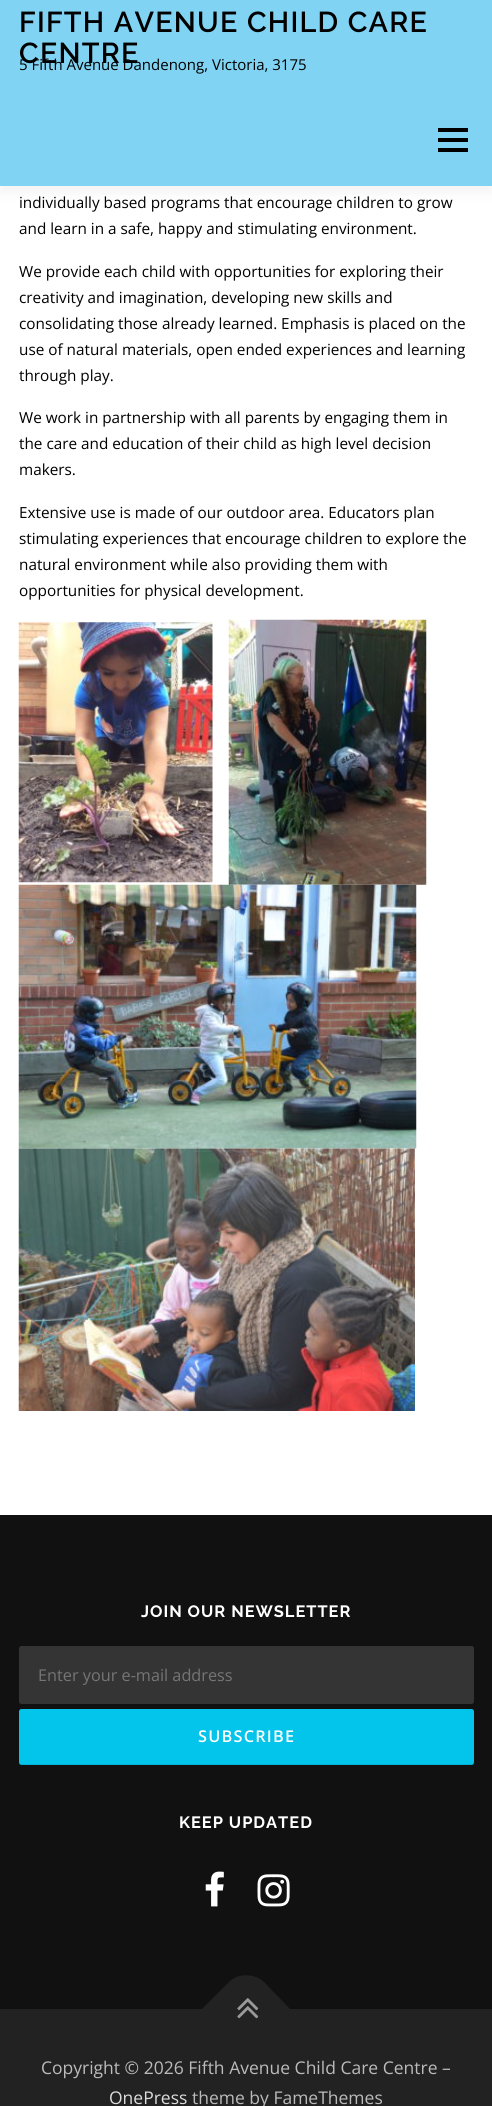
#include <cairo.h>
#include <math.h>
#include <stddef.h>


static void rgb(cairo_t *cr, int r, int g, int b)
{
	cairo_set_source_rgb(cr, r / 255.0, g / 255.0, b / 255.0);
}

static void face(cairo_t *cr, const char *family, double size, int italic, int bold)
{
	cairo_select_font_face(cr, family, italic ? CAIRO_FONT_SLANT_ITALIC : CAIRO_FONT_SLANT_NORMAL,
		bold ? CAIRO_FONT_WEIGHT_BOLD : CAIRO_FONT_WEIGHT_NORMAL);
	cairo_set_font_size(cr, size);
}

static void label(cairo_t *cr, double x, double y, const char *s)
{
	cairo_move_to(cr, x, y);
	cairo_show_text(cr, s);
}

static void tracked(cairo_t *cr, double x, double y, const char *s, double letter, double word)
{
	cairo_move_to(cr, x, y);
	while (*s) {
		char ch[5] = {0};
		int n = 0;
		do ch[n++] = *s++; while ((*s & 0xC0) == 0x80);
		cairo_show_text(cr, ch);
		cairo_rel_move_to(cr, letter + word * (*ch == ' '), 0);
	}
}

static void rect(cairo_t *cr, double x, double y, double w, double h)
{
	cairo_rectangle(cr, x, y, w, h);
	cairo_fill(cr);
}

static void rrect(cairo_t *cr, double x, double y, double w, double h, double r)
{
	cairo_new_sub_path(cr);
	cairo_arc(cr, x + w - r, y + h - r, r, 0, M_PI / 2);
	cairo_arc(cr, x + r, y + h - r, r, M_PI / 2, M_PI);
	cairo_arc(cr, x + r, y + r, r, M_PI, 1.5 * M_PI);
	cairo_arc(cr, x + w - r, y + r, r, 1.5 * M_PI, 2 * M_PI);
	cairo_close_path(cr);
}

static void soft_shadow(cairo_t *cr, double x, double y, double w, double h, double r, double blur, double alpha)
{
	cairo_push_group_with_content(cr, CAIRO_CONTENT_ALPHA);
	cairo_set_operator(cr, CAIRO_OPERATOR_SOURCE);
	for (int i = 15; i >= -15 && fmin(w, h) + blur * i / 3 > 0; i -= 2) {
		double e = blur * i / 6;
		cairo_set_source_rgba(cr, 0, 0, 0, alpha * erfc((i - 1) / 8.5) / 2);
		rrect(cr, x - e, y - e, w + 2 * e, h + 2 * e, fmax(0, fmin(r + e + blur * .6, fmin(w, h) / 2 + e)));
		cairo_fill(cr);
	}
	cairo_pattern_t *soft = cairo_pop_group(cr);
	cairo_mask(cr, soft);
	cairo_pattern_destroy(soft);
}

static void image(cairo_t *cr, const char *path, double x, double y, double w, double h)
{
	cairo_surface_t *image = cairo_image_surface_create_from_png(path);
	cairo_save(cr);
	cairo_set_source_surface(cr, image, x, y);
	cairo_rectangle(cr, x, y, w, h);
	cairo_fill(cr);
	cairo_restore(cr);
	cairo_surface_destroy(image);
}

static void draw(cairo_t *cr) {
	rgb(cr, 255, 255, 255);
	cairo_paint(cr);
	rgb(cr, 50, 50, 50);
	soft_shadow(cr, 0, 6, 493, 187, 0, 6, 0.06);
	rgb(cr, 128, 211, 242);
	rect(cr, 0, 0, 492, 186);
	face(cr, "Raleway SemiBold", 28.75, 0, 0);
	rgb(cr, 0, 0, 0);
	tracked(cr, 19, 32, "FIFTH AVENUE CHILD CARE", 1.25, 0);
	tracked(cr, 19, 63, "CENTRE", 1.25, 0);
	face(cr, "Open Sans", 15, 0, 0);
	label(cr, 19, 70, "5 Fifth Avenue Dandenong, Victoria, 3175");
	rect(cr, 438, 138, 30, 4);
	rect(cr, 438, 128, 30, 4);
	rect(cr, 438, 148, 30, 4);
	face(cr, "Open Sans", 15.3, 0, 0);
	label(cr, 19, 208, "individually based programs that encourage children to grow");
	label(cr, 19, 234, "and learn in a safe, happy and stimulating environment.");
	label(cr, 19, 277, "We provide each child with opportunities for exploring their");
	label(cr, 19, 303, "creativity and imagination, developing new skills and");
	label(cr, 19, 329, "consolidating those already learned. Emphasis is placed on the");
	label(cr, 19, 355, "use of natural materials, open ended experiences and learning");
	label(cr, 19, 381, "through play.");
	label(cr, 19, 423, "We work in partnership with all parents by engaging them in");
	label(cr, 19, 449, "the care and education of their child as high level decision");
	label(cr, 19, 475, "makers.");
	label(cr, 19, 518, "Extensive use is made of our outdoor area. Educators plan");
	label(cr, 19, 544, "stimulating experiences that encourage children to explore the");
	label(cr, 19, 570, "natural environment while also providing them with");
	label(cr, 19, 596, "opportunities for physical development.");
	image(cr, "image0.png", 18, 622, 195, 261);
	image(cr, "image1.png", 228, 619, 199, 266);
	image(cr, "image2.png", 18, 884, 399, 265);
	image(cr, "image3.png", 18, 1148, 397, 263);
	rgb(cr, 17, 17, 17);
	rect(cr, 0, 1515, 492, 494);
	face(cr, "Raleway", 16.4, 0, 1);
	rgb(cr, 255, 255, 255);
	tracked(cr, 141, 1617, "JOIN OUR NEWSLETTER", 1, 0);
	rgb(cr, 52, 52, 52);
	rrect(cr, 19, 1646, 455, 58, 2.5);
	cairo_fill(cr);
	face(cr, "Open Sans", 16.25, 0, 0);
	rgb(cr, 117, 117, 117);
	label(cr, 38, 1681, "Enter your e-mail address");
	rgb(cr, 3, 196, 235);
	rrect(cr, 19, 1709, 455, 56, 2.5);
	cairo_fill(cr);
	cairo_set_source_rgba(cr, 0, 0, 0, 0.1);
	cairo_new_path(cr);
	cairo_move_to(cr, 19, 1761);
	cairo_curve_to(cr, 19, 1763, 19, 1765, 22, 1765);
	cairo_line_to(cr, 472, 1765);
	cairo_line_to(cr, 474, 1764);
	cairo_line_to(cr, 474, 1761);
	cairo_curve_to(cr, 474, 1763, 473, 1764, 471, 1764);
	cairo_line_to(cr, 21, 1764);
	cairo_curve_to(cr, 20, 1764, 19, 1763, 19, 1761);
	cairo_close_path(cr);
	cairo_fill(cr);
	face(cr, "Open Sans SemiBold", 16.25, 0, 0);
	rgb(cr, 255, 255, 255);
	tracked(cr, 198, 1742, "SUBSCRIBE", 1.25, 0);
	face(cr, "Raleway", 16.4, 0, 1);
	tracked(cr, 179, 1828, "KEEP UPDATED", 1, 0);
	image(cr, "image4.png", 205, 1871, 19, 36);
	image(cr, "image5.png", 257, 1874, 33, 33);
	rgb(cr, 34, 34, 34);
	rect(cr, 0, 2009, 492, 97);
	cairo_new_path(cr);
	cairo_move_to(cr, 202, 2009);
	cairo_line_to(cr, 229, 1982);
	cairo_curve_to(cr, 238, 1973, 254, 1973, 264, 1982);
	cairo_line_to(cr, 290, 2009);
	cairo_line_to(cr, 246, 2053);
	cairo_close_path(cr);
	cairo_fill(cr);
	image(cr, "image6.png", 237, 1998, 22, 21);
	face(cr, "Open Sans", 17.5, 0, 0);
	rgb(cr, 187, 187, 187);
	label(cr, 41, 2074, "Copyright © 2026 Fifth Avenue Child Care Centre –");
	rgb(cr, 221, 221, 221);
	label(cr, 109, 2104, "OnePress");
	rgb(cr, 187, 187, 187);
	label(cr, 192, 2104, "theme by FameThemes");
}

int main(void) {
	cairo_surface_t *surface = cairo_image_surface_create(CAIRO_FORMAT_RGB24, 492, 2106);
	cairo_t *cr = cairo_create(surface);
	cairo_font_options_t *options = cairo_font_options_create();
	cairo_font_options_set_hint_metrics(options, CAIRO_HINT_METRICS_OFF);
	cairo_font_options_set_hint_style(options, CAIRO_HINT_STYLE_NONE);
	cairo_set_font_options(cr, options);
	cairo_set_miter_limit(cr, 4);
	draw(cr);
	cairo_surface_write_to_png(surface, "render.png");
	cairo_font_options_destroy(options);
	cairo_destroy(cr);
	cairo_surface_destroy(surface);
	return 0;
}
